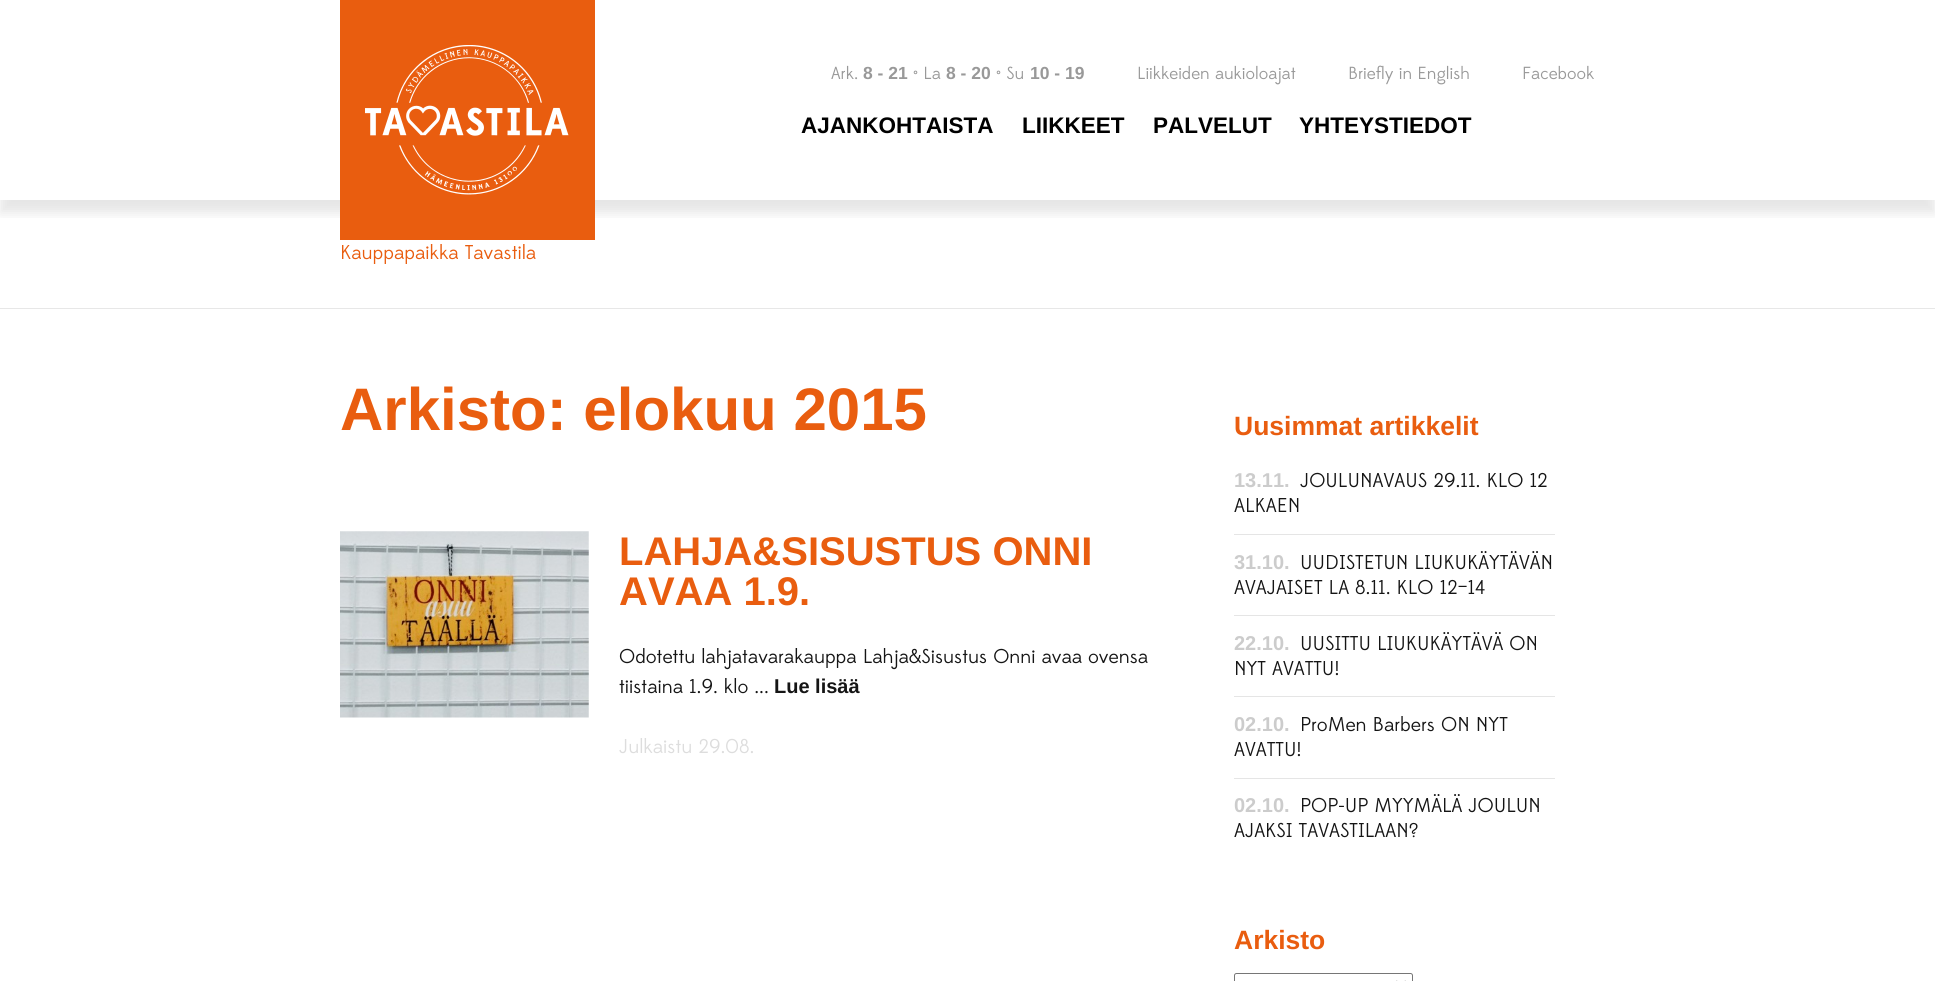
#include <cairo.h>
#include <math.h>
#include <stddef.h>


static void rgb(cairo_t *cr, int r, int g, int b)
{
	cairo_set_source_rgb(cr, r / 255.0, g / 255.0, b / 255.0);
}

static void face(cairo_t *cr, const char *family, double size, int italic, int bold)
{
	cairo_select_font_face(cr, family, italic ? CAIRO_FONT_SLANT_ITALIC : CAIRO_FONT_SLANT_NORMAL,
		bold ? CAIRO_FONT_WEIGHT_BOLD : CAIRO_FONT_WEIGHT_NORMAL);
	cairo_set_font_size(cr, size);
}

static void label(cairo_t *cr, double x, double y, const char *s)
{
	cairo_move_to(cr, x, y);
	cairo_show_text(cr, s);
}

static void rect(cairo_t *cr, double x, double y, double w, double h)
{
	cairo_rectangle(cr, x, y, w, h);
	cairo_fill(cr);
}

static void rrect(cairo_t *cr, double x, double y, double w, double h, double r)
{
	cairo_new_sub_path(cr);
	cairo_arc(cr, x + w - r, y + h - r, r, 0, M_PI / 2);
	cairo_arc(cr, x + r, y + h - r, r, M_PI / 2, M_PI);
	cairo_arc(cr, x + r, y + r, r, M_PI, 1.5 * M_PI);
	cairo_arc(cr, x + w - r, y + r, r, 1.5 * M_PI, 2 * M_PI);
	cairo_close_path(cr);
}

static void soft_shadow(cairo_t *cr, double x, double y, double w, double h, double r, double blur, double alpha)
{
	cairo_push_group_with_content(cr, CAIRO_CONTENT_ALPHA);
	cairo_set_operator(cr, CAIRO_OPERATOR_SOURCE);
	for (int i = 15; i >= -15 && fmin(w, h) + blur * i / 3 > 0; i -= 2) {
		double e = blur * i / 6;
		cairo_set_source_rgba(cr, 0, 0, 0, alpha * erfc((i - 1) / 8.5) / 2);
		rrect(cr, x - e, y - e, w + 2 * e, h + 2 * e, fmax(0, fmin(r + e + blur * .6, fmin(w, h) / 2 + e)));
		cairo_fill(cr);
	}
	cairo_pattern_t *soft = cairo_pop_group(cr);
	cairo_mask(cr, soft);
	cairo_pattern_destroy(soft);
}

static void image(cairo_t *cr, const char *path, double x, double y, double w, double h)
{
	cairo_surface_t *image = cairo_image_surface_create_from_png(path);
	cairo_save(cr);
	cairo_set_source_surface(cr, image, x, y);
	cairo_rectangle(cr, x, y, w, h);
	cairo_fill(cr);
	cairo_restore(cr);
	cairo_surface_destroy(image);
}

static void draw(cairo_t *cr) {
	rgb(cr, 255, 255, 255);
	cairo_paint(cr);
	cairo_save(cr);
	cairo_rectangle(cr, 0, 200, 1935, 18);
	cairo_clip(cr);
	rgb(cr, 0, 0, 0);
	soft_shadow(cr, 0, 13, 1935, 200, 0, 6, 0.1);
	cairo_restore(cr);
	rgb(cr, 233, 93, 15);
	rect(cr, 340, 0, 255, 240);
	image(cr, "image0.png", 365, 45, 204, 150);
	face(cr, "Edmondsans", 17.5, 0, 0);
	rgb(cr, 153, 153, 153);
	label(cr, 831, 79, "Ark.");
	face(cr, "Liberation Sans", 17.5, 0, 1);
	label(cr, 863, 79, "8 - 21");
	face(cr, "Edmondsans", 17.5, 0, 0);
	label(cr, 913, 79, "• La");
	face(cr, "Liberation Sans", 17.5, 0, 1);
	label(cr, 946, 79, "8 - 20");
	face(cr, "Edmondsans", 17.5, 0, 0);
	label(cr, 996, 79, "• Su");
	face(cr, "Liberation Sans", 17.5, 0, 1);
	label(cr, 1030, 79, "10 - 19");
	face(cr, "Edmondsans", 17.5, 0, 0);
	label(cr, 1137, 79, "Liikkeiden aukioloajat");
	label(cr, 1348, 79, "Briefly in English");
	label(cr, 1522, 79, "Facebook");
	face(cr, "Liberation Sans", 22.5, 0, 1);
	rgb(cr, 0, 0, 0);
	label(cr, 801, 133, "AJANKOHTAISTA");
	label(cr, 1022, 133, "LIIKKEET");
	label(cr, 1153, 133, "PALVELUT");
	label(cr, 1299, 133, "YHTEYSTIEDOT");
	rgb(cr, 231, 231, 231);
	rect(cr, 0, 308, 1935, 1);
	face(cr, "Edmondsans", 20, 0, 0);
	rgb(cr, 233, 93, 15);
	label(cr, 340, 259, "Kauppapaikka Tavastila");
	face(cr, "Liberation Sans", 60, 0, 1);
	label(cr, 340, 430, "Arkisto: elokuu 2015");
	image(cr, "image1.png", 340, 531, 249, 187);
	face(cr, "Liberation Sans", 40, 0, 1);
	label(cr, 619, 565, "LAHJA&SISUSTUS ONNI");
	label(cr, 619, 605, "AVAA 1.9.");
	face(cr, "Edmondsans", 20, 0, 0);
	rgb(cr, 21, 21, 21);
	label(cr, 619, 663, "Odotettu lahjatavarakauppa Lahja&Sisustus Onni avaa ovensa");
	label(cr, 619, 693, "tiistaina 1.9. klo ...");
	face(cr, "Liberation Sans", 20, 0, 1);
	label(cr, 774, 693, "Lue lisää");
	face(cr, "Edmondsans", 20, 0, 0);
	rgb(cr, 221, 221, 221);
	label(cr, 619, 753, "Julkaistu 29.08.");
	face(cr, "Liberation Sans", 26.5, 0, 1);
	rgb(cr, 233, 93, 15);
	label(cr, 1234, 435, "Uusimmat artikkelit");
	rgb(cr, 229, 229, 229);
	rect(cr, 1234, 534, 321, 1);
	face(cr, "Liberation Sans", 20, 0, 1);
	rgb(cr, 204, 204, 204);
	label(cr, 1234, 487, "13.11.");
	face(cr, "Edmondsans", 20, 0, 0);
	rgb(cr, 21, 21, 21);
	label(cr, 1300, 487, "JOULUNAVAUS 29.11. KLO 12");
	label(cr, 1234, 512, "ALKAEN");
	rgb(cr, 229, 229, 229);
	rect(cr, 1234, 615, 321, 1);
	face(cr, "Liberation Sans", 20, 0, 1);
	rgb(cr, 204, 204, 204);
	label(cr, 1234, 569, "31.10.");
	face(cr, "Edmondsans", 20, 0, 0);
	rgb(cr, 21, 21, 21);
	label(cr, 1300, 569, "UUDISTETUN LIUKUKÄYTÄVÄN");
	label(cr, 1234, 594, "AVAJAISET LA 8.11. KLO 12–14");
	rgb(cr, 229, 229, 229);
	rect(cr, 1234, 696, 321, 1);
	face(cr, "Liberation Sans", 20, 0, 1);
	rgb(cr, 204, 204, 204);
	label(cr, 1234, 650, "22.10.");
	face(cr, "Edmondsans", 20, 0, 0);
	rgb(cr, 21, 21, 21);
	label(cr, 1300, 650, "UUSITTU LIUKUKÄYTÄVÄ ON");
	label(cr, 1234, 675, "NYT AVATTU!");
	rgb(cr, 229, 229, 229);
	rect(cr, 1234, 778, 321, 1);
	face(cr, "Liberation Sans", 20, 0, 1);
	rgb(cr, 204, 204, 204);
	label(cr, 1234, 731, "02.10.");
	face(cr, "Edmondsans", 20, 0, 0);
	rgb(cr, 21, 21, 21);
	label(cr, 1300, 731, "ProMen Barbers ON NYT");
	label(cr, 1234, 756, "AVATTU!");
	face(cr, "Liberation Sans", 20, 0, 1);
	rgb(cr, 204, 204, 204);
	label(cr, 1234, 812, "02.10.");
	face(cr, "Edmondsans", 20, 0, 0);
	rgb(cr, 21, 21, 21);
	label(cr, 1300, 812, "POP-UP MYYMÄLÄ JOULUN");
	label(cr, 1234, 837, "AJAKSI TAVASTILAAN?");
	face(cr, "Liberation Sans", 26.5, 0, 1);
	rgb(cr, 233, 93, 15);
	label(cr, 1234, 949, "Arkisto");
	rrect(cr, 1234.5, 973.5, 178, 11, 2);
	rgb(cr, 118, 118, 118);
	cairo_set_line_width(cr, 1);
	cairo_stroke(cr);
	cairo_new_path(cr);
	cairo_move_to(cr, 1396, 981.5);
	cairo_line_to(cr, 1401, 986.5);
	cairo_line_to(cr, 1406, 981.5);
	rgb(cr, 0, 0, 0);
	cairo_set_line_width(cr, 2.5);
	cairo_stroke(cr);
}

int main(void) {
	cairo_surface_t *surface = cairo_image_surface_create(CAIRO_FORMAT_RGB24, 1935, 981);
	cairo_t *cr = cairo_create(surface);
	cairo_font_options_t *options = cairo_font_options_create();
	cairo_font_options_set_hint_metrics(options, CAIRO_HINT_METRICS_OFF);
	cairo_font_options_set_hint_style(options, CAIRO_HINT_STYLE_NONE);
	cairo_set_font_options(cr, options);
	cairo_set_miter_limit(cr, 4);
	draw(cr);
	cairo_surface_write_to_png(surface, "render.png");
	cairo_font_options_destroy(options);
	cairo_destroy(cr);
	cairo_surface_destroy(surface);
	return 0;
}
